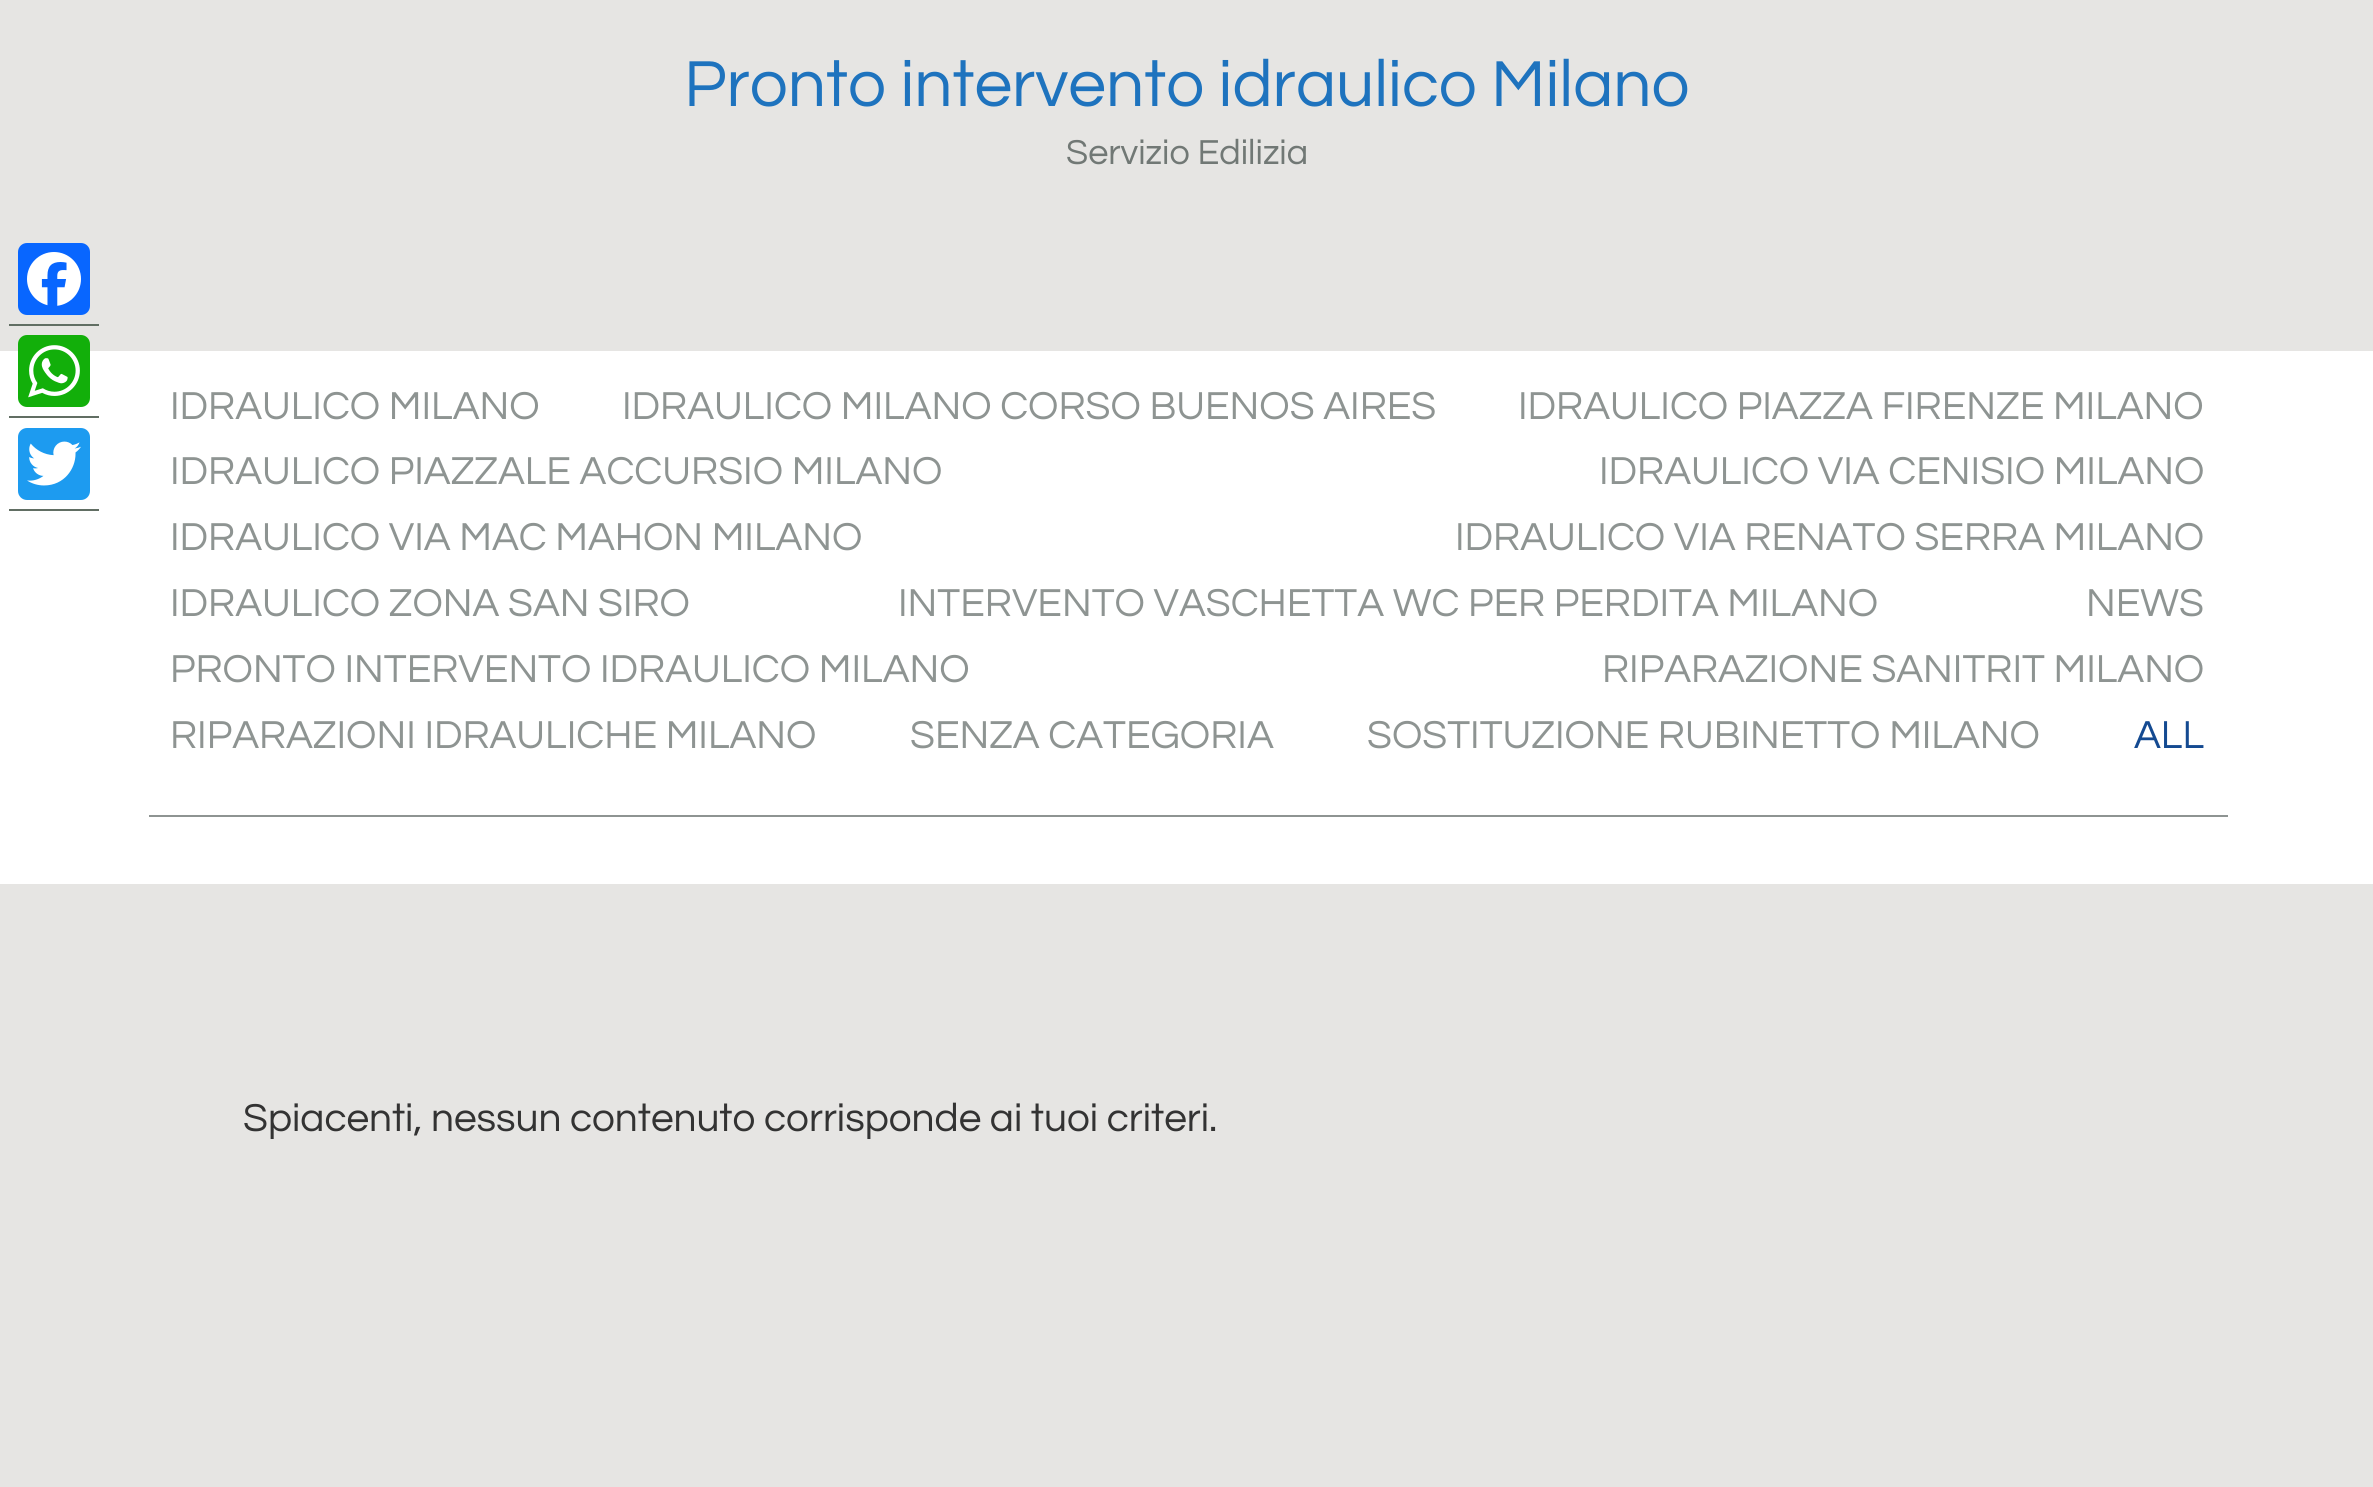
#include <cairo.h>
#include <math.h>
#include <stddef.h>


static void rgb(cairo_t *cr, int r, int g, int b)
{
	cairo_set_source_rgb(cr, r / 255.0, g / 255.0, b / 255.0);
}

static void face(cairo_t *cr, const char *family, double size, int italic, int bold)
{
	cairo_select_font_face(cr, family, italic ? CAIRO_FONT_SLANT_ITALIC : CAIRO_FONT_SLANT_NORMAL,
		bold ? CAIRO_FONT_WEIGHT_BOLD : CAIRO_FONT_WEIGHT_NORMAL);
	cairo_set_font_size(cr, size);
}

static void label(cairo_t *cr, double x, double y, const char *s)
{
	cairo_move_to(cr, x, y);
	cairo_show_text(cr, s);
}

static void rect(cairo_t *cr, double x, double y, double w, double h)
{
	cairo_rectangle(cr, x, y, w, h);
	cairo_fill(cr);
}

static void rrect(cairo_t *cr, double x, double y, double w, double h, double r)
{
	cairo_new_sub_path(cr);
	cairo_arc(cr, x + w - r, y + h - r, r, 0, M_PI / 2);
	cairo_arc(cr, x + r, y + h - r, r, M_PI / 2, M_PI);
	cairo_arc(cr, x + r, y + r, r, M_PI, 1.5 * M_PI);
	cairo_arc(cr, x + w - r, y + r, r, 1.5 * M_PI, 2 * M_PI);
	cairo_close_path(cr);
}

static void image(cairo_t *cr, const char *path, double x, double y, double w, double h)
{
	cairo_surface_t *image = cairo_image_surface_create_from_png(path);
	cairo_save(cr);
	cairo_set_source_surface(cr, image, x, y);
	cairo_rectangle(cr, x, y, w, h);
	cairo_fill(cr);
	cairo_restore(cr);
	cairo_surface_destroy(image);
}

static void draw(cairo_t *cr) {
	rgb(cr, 255, 255, 255);
	cairo_paint(cr);
	rgb(cr, 230, 229, 227);
	rect(cr, 0, 0, 2373, 351);
	rgb(cr, 97, 110, 99);
	rect(cr, 9, 324, 90, 2);
	rgb(cr, 8, 102, 255);
	rrect(cr, 18, 243, 72, 72, 9);
	cairo_fill(cr);
	image(cr, "image0.png", 27, 252, 54, 54);
	rgb(cr, 97, 110, 99);
	rect(cr, 9, 416, 90, 2);
	rgb(cr, 18, 175, 10);
	rrect(cr, 18, 335, 72, 72, 9);
	cairo_fill(cr);
	image(cr, "image1.png", 28, 345, 52, 53);
	rgb(cr, 97, 110, 99);
	rect(cr, 9, 509, 90, 2);
	rgb(cr, 29, 155, 240);
	rrect(cr, 18, 428, 72, 72, 9);
	cairo_fill(cr);
	image(cr, "image2.png", 27, 441, 54, 45);
	face(cr, "Questrial", 67.5, 0, 0);
	rgb(cr, 30, 115, 190);
	label(cr, 684, 106, "Pronto intervento idraulico Milano");
	face(cr, "Questrial", 36, 0, 0);
	rgb(cr, 113, 120, 117);
	label(cr, 1066, 164, "Servizio Edilizia");
	rgb(cr, 142, 148, 146);
	rect(cr, 149, 815, 2079, 2);
	face(cr, "Questrial", 40.5, 0, 0);
	label(cr, 170, 419, "IDRAULICO MILANO");
	label(cr, 622, 419, "IDRAULICO MILANO CORSO BUENOS AIRES");
	label(cr, 1518, 419, "IDRAULICO PIAZZA FIRENZE MILANO");
	label(cr, 170, 484, "IDRAULICO PIAZZALE ACCURSIO MILANO");
	label(cr, 1599, 484, "IDRAULICO VIA CENISIO MILANO");
	label(cr, 170, 550, "IDRAULICO VIA MAC MAHON MILANO");
	label(cr, 1455, 550, "IDRAULICO VIA RENATO SERRA MILANO");
	label(cr, 170, 616, "IDRAULICO ZONA SAN SIRO");
	label(cr, 898, 616, "INTERVENTO VASCHETTA WC PER PERDITA MILANO");
	label(cr, 2086, 616, "NEWS");
	label(cr, 170, 682, "PRONTO INTERVENTO IDRAULICO MILANO");
	label(cr, 1602, 682, "RIPARAZIONE SANITRIT MILANO");
	label(cr, 170, 748, "RIPARAZIONI IDRAULICHE MILANO");
	label(cr, 910, 748, "SENZA CATEGORIA");
	label(cr, 1367, 748, "SOSTITUZIONE RUBINETTO MILANO");
	rgb(cr, 20, 74, 145);
	label(cr, 2134, 748, "ALL");
	rgb(cr, 230, 229, 227);
	rect(cr, 0, 884, 2373, 603);
	rgb(cr, 51, 51, 51);
	label(cr, 243, 1131, "Spiacenti, nessun contenuto corrisponde ai tuoi criteri.");
}

int main(void) {
	cairo_surface_t *surface = cairo_image_surface_create(CAIRO_FORMAT_RGB24, 2373, 1487);
	cairo_t *cr = cairo_create(surface);
	cairo_font_options_t *options = cairo_font_options_create();
	cairo_font_options_set_hint_metrics(options, CAIRO_HINT_METRICS_OFF);
	cairo_font_options_set_hint_style(options, CAIRO_HINT_STYLE_NONE);
	cairo_set_font_options(cr, options);
	cairo_set_miter_limit(cr, 4);
	draw(cr);
	cairo_surface_write_to_png(surface, "render.png");
	cairo_font_options_destroy(options);
	cairo_destroy(cr);
	cairo_surface_destroy(surface);
	return 0;
}
